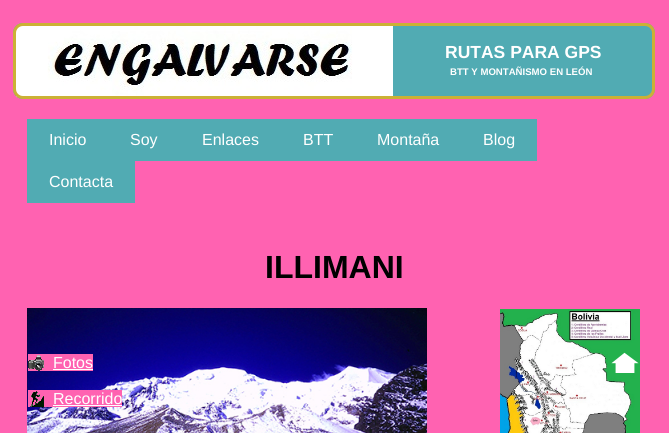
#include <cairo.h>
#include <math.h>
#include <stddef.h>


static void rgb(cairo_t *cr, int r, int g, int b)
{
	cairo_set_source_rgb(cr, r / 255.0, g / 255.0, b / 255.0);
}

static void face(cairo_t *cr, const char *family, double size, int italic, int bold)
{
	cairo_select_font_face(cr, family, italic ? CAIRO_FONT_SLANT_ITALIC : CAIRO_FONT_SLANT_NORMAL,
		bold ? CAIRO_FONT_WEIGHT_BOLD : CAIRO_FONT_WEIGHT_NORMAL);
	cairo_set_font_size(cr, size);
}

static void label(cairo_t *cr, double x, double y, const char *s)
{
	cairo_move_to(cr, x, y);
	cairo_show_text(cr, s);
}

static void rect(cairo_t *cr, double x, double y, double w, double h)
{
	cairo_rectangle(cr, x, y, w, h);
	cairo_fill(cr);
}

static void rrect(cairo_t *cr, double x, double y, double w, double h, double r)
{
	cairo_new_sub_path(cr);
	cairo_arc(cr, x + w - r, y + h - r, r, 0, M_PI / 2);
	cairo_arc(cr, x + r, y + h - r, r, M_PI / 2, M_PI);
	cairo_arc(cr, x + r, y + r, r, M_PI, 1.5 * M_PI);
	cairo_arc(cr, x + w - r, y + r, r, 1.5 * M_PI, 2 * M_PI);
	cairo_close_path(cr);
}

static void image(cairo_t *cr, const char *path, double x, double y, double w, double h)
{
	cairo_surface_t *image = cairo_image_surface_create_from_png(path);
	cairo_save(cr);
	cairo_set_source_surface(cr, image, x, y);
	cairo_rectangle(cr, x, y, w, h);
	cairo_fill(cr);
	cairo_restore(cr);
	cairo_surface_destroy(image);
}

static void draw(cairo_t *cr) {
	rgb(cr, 255, 98, 177);
	cairo_paint(cr);
	rgb(cr, 81, 171, 179);
	rrect(cr, 13, 23, 642, 76, 10);
	cairo_fill(cr);
	image(cr, "image0.png", 16, 26, 377, 71);
	rrect(cr, 14.5, 24.5, 639, 73, 8.5);
	rgb(cr, 203, 177, 53);
	cairo_set_line_width(cr, 3);
	cairo_stroke(cr);
	face(cr, "Liberation Sans", 17.5, 0, 1);
	rgb(cr, 255, 255, 255);
	label(cr, 445, 58, "RUTAS PARA GPS");
	face(cr, "Liberation Sans", 9.6, 0, 1);
	label(cr, 450, 75, "BTT Y MONTAÑISMO EN LEÓN");
	rgb(cr, 81, 171, 179);
	rect(cr, 27, 119, 510, 42);
	face(cr, "Liberation Sans", 16, 0, 0);
	rgb(cr, 255, 255, 255);
	label(cr, 49, 145, "Inicio");
	label(cr, 130, 145, "Soy");
	label(cr, 202, 145, "Enlaces");
	label(cr, 303, 145, "BTT");
	label(cr, 377, 145, "Montaña");
	label(cr, 483, 145, "Blog");
	rgb(cr, 81, 171, 179);
	rect(cr, 27, 161, 108, 42);
	rgb(cr, 255, 255, 255);
	label(cr, 49, 187, "Contacta");
	face(cr, "Liberation Sans", 32, 0, 1);
	rgb(cr, 0, 0, 0);
	label(cr, 265, 278, "ILLIMANI");
	image(cr, "image1.png", 27, 308, 400, 125);
	image(cr, "image2.png", 500, 309, 140, 124);
	rgb(cr, 255, 98, 177);
	rect(cr, 28, 354, 65, 17);
	image(cr, "image3.png", 28, 355, 16, 16);
	face(cr, "Liberation Sans", 16, 0, 0);
	rgb(cr, 255, 255, 255);
	label(cr, 53, 368, "Fotos");
	rect(cr, 53, 369, 40, 1);
	rgb(cr, 255, 98, 177);
	rect(cr, 28, 390, 94, 17);
	image(cr, "image4.png", 30, 391, 14, 16);
	rgb(cr, 255, 255, 255);
	label(cr, 53, 404, "Recorrido");
	rect(cr, 53, 405, 69, 1);
	image(cr, "image5.png", 611, 352, 28, 21);
}

int main(void) {
	cairo_surface_t *surface = cairo_image_surface_create(CAIRO_FORMAT_RGB24, 669, 433);
	cairo_t *cr = cairo_create(surface);
	cairo_font_options_t *options = cairo_font_options_create();
	cairo_font_options_set_hint_metrics(options, CAIRO_HINT_METRICS_OFF);
	cairo_font_options_set_hint_style(options, CAIRO_HINT_STYLE_NONE);
	cairo_set_font_options(cr, options);
	cairo_set_miter_limit(cr, 4);
	draw(cr);
	cairo_surface_write_to_png(surface, "render.png");
	cairo_font_options_destroy(options);
	cairo_destroy(cr);
	cairo_surface_destroy(surface);
	return 0;
}
